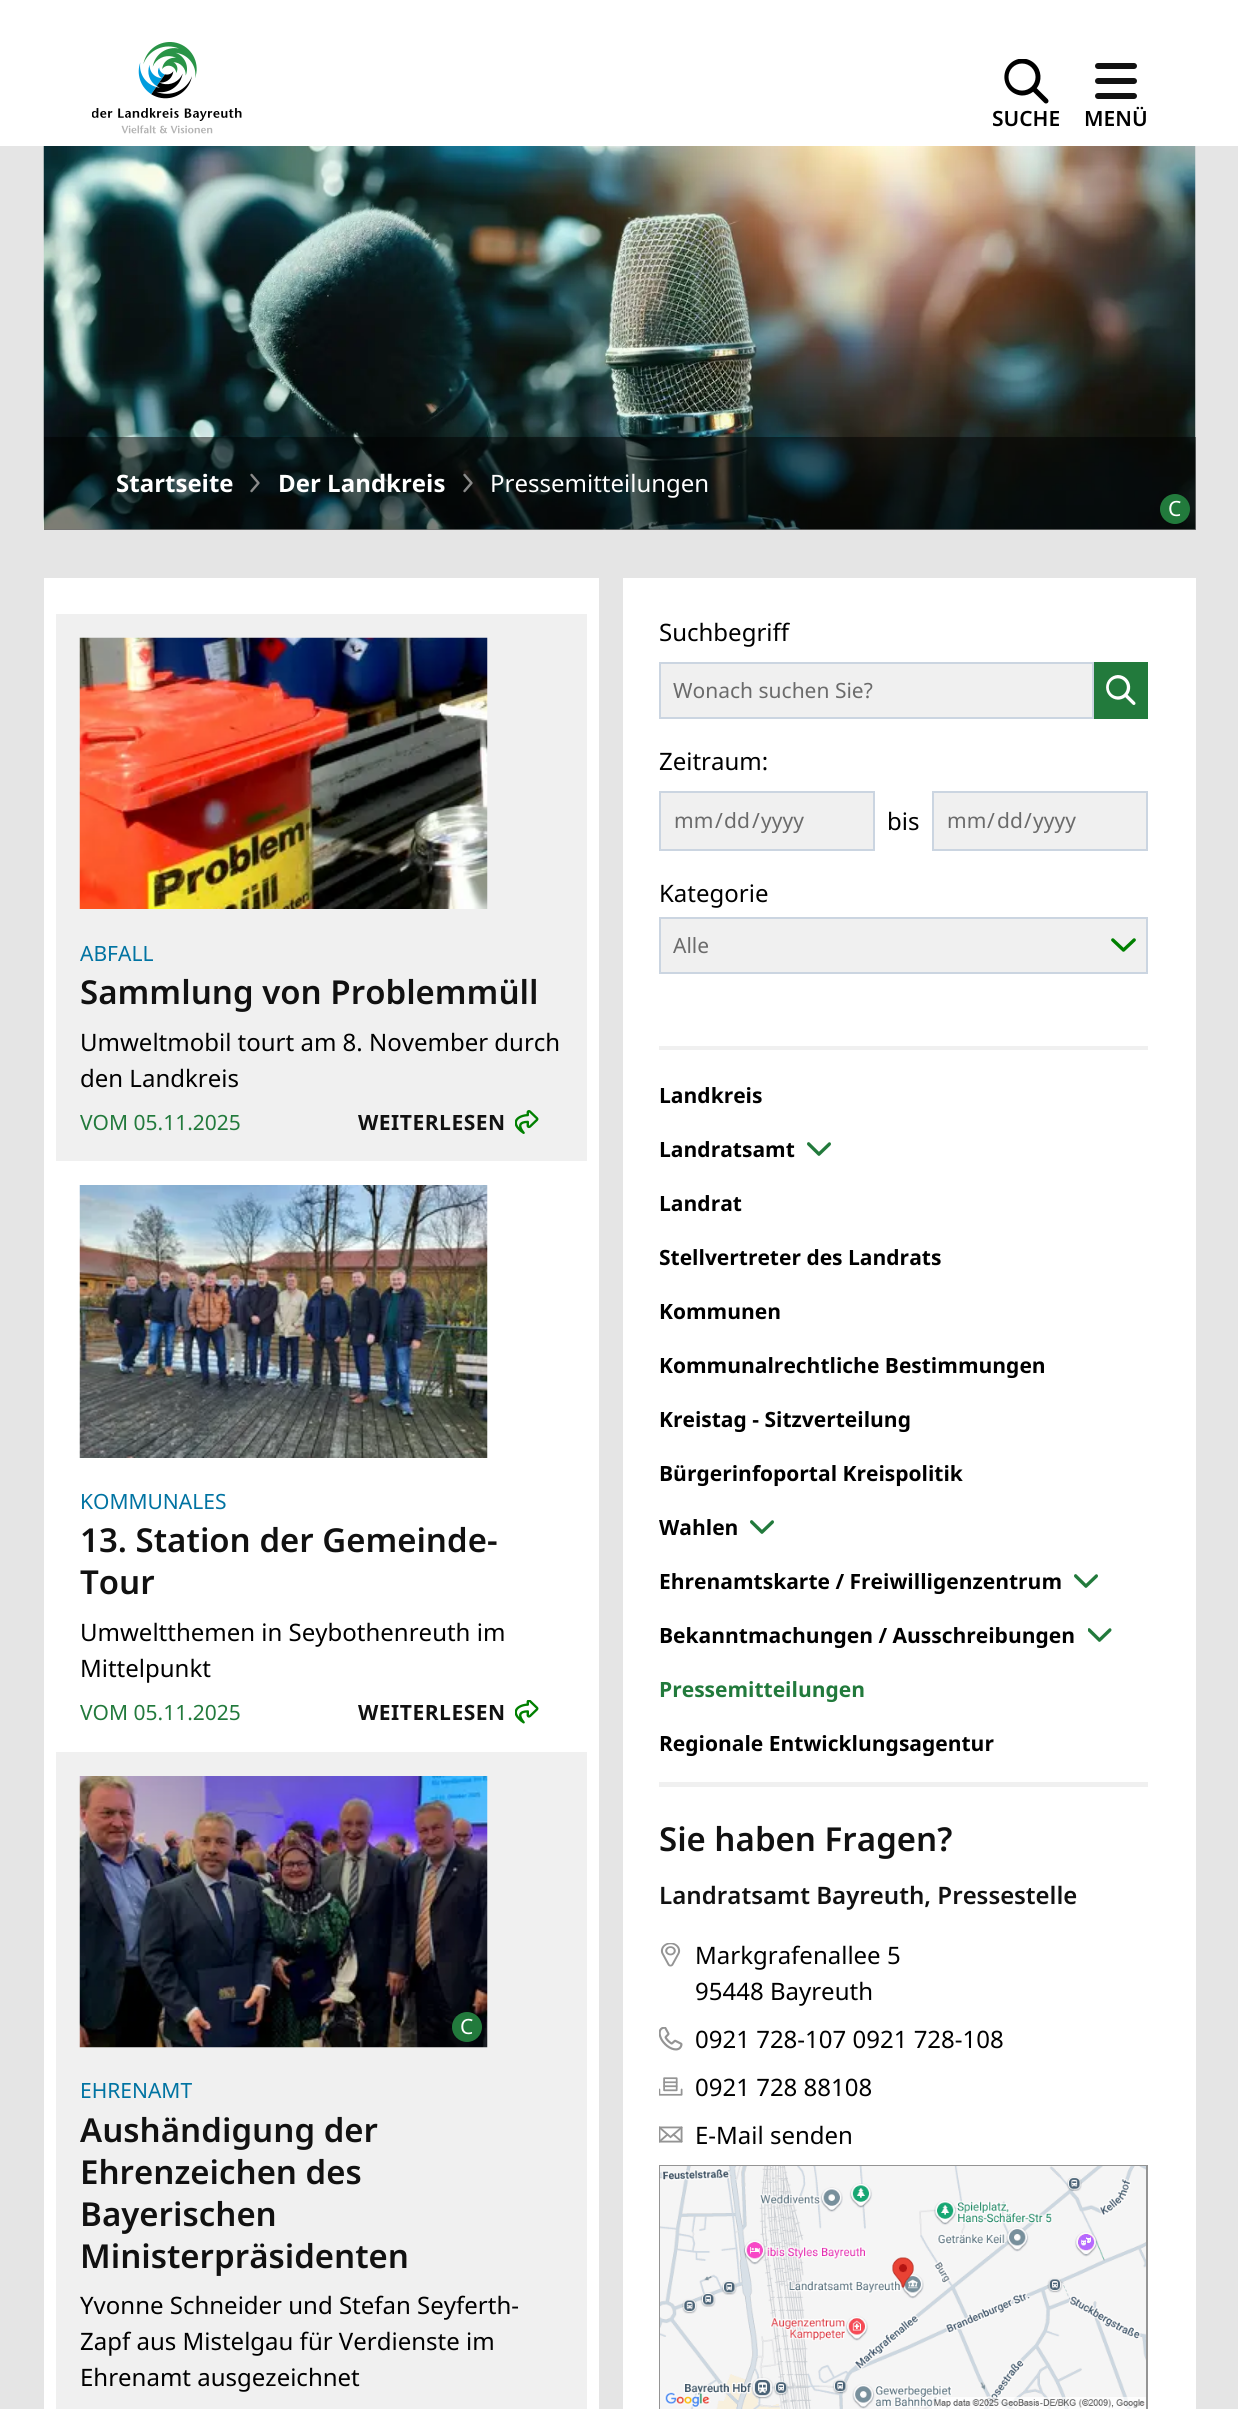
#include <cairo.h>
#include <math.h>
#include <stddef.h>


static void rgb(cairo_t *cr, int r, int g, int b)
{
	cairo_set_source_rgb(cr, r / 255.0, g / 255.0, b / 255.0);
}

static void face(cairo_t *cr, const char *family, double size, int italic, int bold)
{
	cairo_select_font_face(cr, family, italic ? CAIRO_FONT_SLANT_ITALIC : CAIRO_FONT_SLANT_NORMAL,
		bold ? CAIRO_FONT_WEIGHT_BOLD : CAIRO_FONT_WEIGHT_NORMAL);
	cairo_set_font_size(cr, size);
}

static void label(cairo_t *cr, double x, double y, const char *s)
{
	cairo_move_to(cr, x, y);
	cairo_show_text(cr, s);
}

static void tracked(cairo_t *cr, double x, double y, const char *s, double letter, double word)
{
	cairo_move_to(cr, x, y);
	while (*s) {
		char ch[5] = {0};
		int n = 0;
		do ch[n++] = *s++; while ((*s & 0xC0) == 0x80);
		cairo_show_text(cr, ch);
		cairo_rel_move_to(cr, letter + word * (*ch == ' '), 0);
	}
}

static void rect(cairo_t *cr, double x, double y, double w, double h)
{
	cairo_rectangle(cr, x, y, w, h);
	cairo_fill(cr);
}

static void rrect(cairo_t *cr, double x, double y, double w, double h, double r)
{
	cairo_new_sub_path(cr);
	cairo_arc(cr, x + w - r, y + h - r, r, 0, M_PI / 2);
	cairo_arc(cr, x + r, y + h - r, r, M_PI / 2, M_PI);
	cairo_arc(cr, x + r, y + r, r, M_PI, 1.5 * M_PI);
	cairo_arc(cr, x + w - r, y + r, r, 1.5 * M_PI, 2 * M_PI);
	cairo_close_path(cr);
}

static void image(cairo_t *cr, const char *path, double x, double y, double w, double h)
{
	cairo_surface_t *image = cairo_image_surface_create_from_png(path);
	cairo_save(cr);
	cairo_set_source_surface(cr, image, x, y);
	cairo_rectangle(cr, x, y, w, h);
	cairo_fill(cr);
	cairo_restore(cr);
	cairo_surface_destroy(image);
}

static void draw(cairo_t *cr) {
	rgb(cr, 229, 229, 229);
	cairo_paint(cr);
	rgb(cr, 255, 255, 255);
	rect(cr, 0, 0, 1238, 146);
	image(cr, "image0.png", 138, 42, 59, 57);
	image(cr, "image1.png", 92, 108, 150, 26);
	image(cr, "image2.png", 1004, 59, 45, 45);
	face(cr, "Noto Sans SemiBold", 21, 0, 0);
	rgb(cr, 0, 0, 0);
	label(cr, 992, 126, "SUCHE");
	rgb(cr, 17, 17, 17);
	rrect(cr, 1095, 78, 42, 6, 3);
	cairo_fill(cr);
	rrect(cr, 1095, 63, 42, 6, 3);
	cairo_fill(cr);
	rrect(cr, 1095, 93, 42, 6, 3);
	cairo_fill(cr);
	rgb(cr, 0, 0, 0);
	label(cr, 1084, 126, "MENÜ");
	image(cr, "image5.png", 43, 146, 1153, 384);
	cairo_set_source_rgba(cr, 0, 0, 0, 0.5);
	rect(cr, 44, 437, 1152, 93);
	face(cr, "Noto Sans", 24, 0, 1);
	rgb(cr, 255, 255, 255);
	label(cr, 116, 492, "Startseite");
	image(cr, "image3.png", 250, 473, 10, 20);
	label(cr, 278, 492, "Der Landkreis");
	image(cr, "image4.png", 463, 473, 10, 20);
	face(cr, "Noto Sans", 24, 0, 0);
	label(cr, 490, 492, "Pressemitteilungen");
	rgb(cr, 34, 122, 60);
	cairo_new_path(cr);
	cairo_arc(cr, 1175, 509, 15, 0, 2 * M_PI);
	cairo_fill(cr);
	face(cr, "Noto Sans", 21, 0, 0);
	rgb(cr, 255, 255, 255);
	label(cr, 1168, 516, "C");
	rect(cr, 44, 578, 555, 1831);
	rgb(cr, 240, 240, 240);
	rect(cr, 56, 614, 531, 547);
	image(cr, "image6.png", 79, 637, 409, 272);
	rgb(cr, 0, 115, 162);
	label(cr, 80, 961, "ABFALL");
	face(cr, "Noto Sans SemiBold", 33, 0, 0);
	rgb(cr, 17, 17, 17);
	label(cr, 80, 1004, "Sammlung von Problemmüll");
	face(cr, "Noto Sans", 24, 0, 0);
	rgb(cr, 0, 0, 0);
	label(cr, 80, 1051, "Umweltmobil tourt am 8. November durch");
	label(cr, 80, 1087, "den Landkreis");
	face(cr, "Noto Sans", 21, 0, 0);
	rgb(cr, 34, 122, 60);
	label(cr, 80, 1130, "VOM 05.11.2025");
	face(cr, "Noto Sans", 21, 0, 1);
	rgb(cr, 17, 17, 17);
	tracked(cr, 358, 1130, "WEITERLESEN", 0.5, 0);
	image(cr, "image7.png", 515, 1110, 24, 24);
	image(cr, "image8.png", 79, 1185, 409, 273);
	face(cr, "Noto Sans", 21, 0, 0);
	rgb(cr, 0, 115, 162);
	label(cr, 80, 1509, "KOMMUNALES");
	face(cr, "Noto Sans SemiBold", 33, 0, 0);
	rgb(cr, 17, 17, 17);
	label(cr, 80, 1552, "13. Station der Gemeinde-");
	label(cr, 80, 1594, "Tour");
	face(cr, "Noto Sans", 24, 0, 0);
	rgb(cr, 0, 0, 0);
	label(cr, 80, 1641, "Umweltthemen in Seybothenreuth im");
	label(cr, 80, 1677, "Mittelpunkt");
	face(cr, "Noto Sans", 21, 0, 0);
	rgb(cr, 34, 122, 60);
	label(cr, 80, 1720, "VOM 05.11.2025");
	face(cr, "Noto Sans", 21, 0, 1);
	rgb(cr, 17, 17, 17);
	tracked(cr, 358, 1720, "WEITERLESEN", 0.5, 0);
	image(cr, "image9.png", 515, 1700, 24, 24);
	rgb(cr, 240, 240, 240);
	rect(cr, 56, 1752, 531, 657);
	image(cr, "image10.png", 79, 1776, 409, 272);
	rgb(cr, 34, 122, 60);
	cairo_arc(cr, 467, 2027, 15, 0, 2 * M_PI);
	cairo_fill(cr);
	face(cr, "Noto Sans", 21, 0, 0);
	rgb(cr, 255, 255, 255);
	label(cr, 460, 2034, "C");
	rgb(cr, 0, 115, 162);
	label(cr, 80, 2098, "EHRENAMT");
	face(cr, "Noto Sans SemiBold", 33, 0, 0);
	rgb(cr, 17, 17, 17);
	label(cr, 80, 2142, "Aushändigung der");
	label(cr, 80, 2184, "Ehrenzeichen des");
	label(cr, 80, 2226, "Bayerischen");
	label(cr, 80, 2268, "Ministerpräsidenten");
	face(cr, "Noto Sans", 24, 0, 0);
	rgb(cr, 0, 0, 0);
	label(cr, 80, 2314, "Yvonne Schneider und Stefan Seyferth-");
	label(cr, 80, 2350, "Zapf aus Mistelgau für Verdienste im");
	label(cr, 80, 2386, "Ehrenamt ausgezeichnet");
	rgb(cr, 255, 255, 255);
	rect(cr, 623, 578, 573, 1831);
	rgb(cr, 0, 0, 0);
	label(cr, 659, 641, "Suchbegriff");
	rgb(cr, 240, 240, 240);
	cairo_rectangle(cr, 660, 663, 433, 55);
	cairo_fill_preserve(cr);
	rgb(cr, 203, 213, 225);
	cairo_stroke(cr);
	face(cr, "Noto Sans", 21, 0, 0);
	rgb(cr, 107, 107, 107);
	label(cr, 673, 698, "Wonach suchen Sie?");
	rgb(cr, 34, 122, 60);
	rect(cr, 1094, 662, 54, 57);
	image(cr, "image11.png", 1106, 675, 30, 30);
	face(cr, "Noto Sans", 24, 0, 0);
	rgb(cr, 0, 0, 0);
	label(cr, 659, 770, "Zeitraum:");
	rgb(cr, 240, 240, 240);
	cairo_rectangle(cr, 660, 792, 214, 58);
	cairo_fill_preserve(cr);
	rgb(cr, 203, 213, 225);
	cairo_stroke(cr);
	face(cr, "Noto Sans", 21, 0, 0);
	rgb(cr, 107, 107, 107);
	label(cr, 674, 828, "mm");
	label(cr, 715, 828, "/");
	label(cr, 724, 828, "dd");
	label(cr, 752, 828, "/");
	label(cr, 761, 828, "yyyy");
	face(cr, "Noto Sans", 24, 0, 0);
	rgb(cr, 0, 0, 0);
	label(cr, 887, 830, "bis");
	rgb(cr, 240, 240, 240);
	cairo_rectangle(cr, 933, 792, 214, 58);
	cairo_fill_preserve(cr);
	rgb(cr, 203, 213, 225);
	cairo_stroke(cr);
	face(cr, "Noto Sans", 21, 0, 0);
	rgb(cr, 107, 107, 107);
	label(cr, 947, 828, "mm");
	label(cr, 987, 828, "/");
	label(cr, 997, 828, "dd");
	label(cr, 1024, 828, "/");
	label(cr, 1033, 828, "yyyy");
	face(cr, "Noto Sans", 24, 0, 0);
	rgb(cr, 0, 0, 0);
	label(cr, 659, 902, "Kategorie");
	rgb(cr, 240, 240, 240);
	rect(cr, 661, 919, 485, 53);
	image(cr, "image12.png", 1111, 938, 25, 14);
	cairo_rectangle(cr, 660, 918, 487, 55);
	rgb(cr, 203, 213, 225);
	cairo_stroke(cr);
	face(cr, "Noto Sans", 21, 0, 0);
	rgb(cr, 107, 107, 107);
	label(cr, 673, 953, "Alle");
	rgb(cr, 240, 240, 240);
	rect(cr, 659, 1046, 489, 4);
	face(cr, "Noto Sans", 21, 0, 1);
	rgb(cr, 0, 0, 0);
	label(cr, 659, 1103, "Landkreis");
	label(cr, 659, 1157, "Landratsamt");
	image(cr, "image13.png", 807, 1142, 24, 14);
	label(cr, 659, 1211, "Landrat");
	label(cr, 659, 1265, "Stellvertreter des Landrats");
	label(cr, 659, 1319, "Kommunen");
	label(cr, 659, 1373, "Kommunalrechtliche Bestimmungen");
	label(cr, 659, 1427, "Kreistag - Sitzverteilung");
	label(cr, 659, 1481, "Bürgerinfoportal Kreispolitik");
	label(cr, 659, 1535, "Wahlen");
	image(cr, "image13.png", 750, 1520, 24, 14);
	label(cr, 659, 1589, "Ehrenamtskarte / Freiwilligenzentrum");
	image(cr, "image13.png", 1074, 1574, 24, 14);
	label(cr, 659, 1643, "Bekanntmachungen / Ausschreibungen");
	image(cr, "image14.png", 1088, 1628, 24, 14);
	rgb(cr, 34, 122, 60);
	label(cr, 659, 1697, "Pressemitteilungen");
	rgb(cr, 0, 0, 0);
	label(cr, 659, 1751, "Regionale Entwicklungsagentur");
	rgb(cr, 240, 240, 240);
	rect(cr, 659, 1782, 489, 5);
	face(cr, "Noto Sans SemiBold", 33, 0, 0);
	rgb(cr, 17, 17, 17);
	label(cr, 659, 1851, "Sie haben Fragen?");
	face(cr, "Noto Sans SemiBold", 24, 0, 0);
	label(cr, 659, 1904, "Landratsamt Bayreuth, Pressestelle");
	image(cr, "image15.png", 660, 1943, 21, 24);
	face(cr, "Noto Sans", 24, 0, 0);
	rgb(cr, 0, 0, 0);
	label(cr, 695, 1964, "Markgrafenallee 5");
	label(cr, 695, 2000, "95448 Bayreuth");
	image(cr, "image16.png", 659, 2027, 24, 24);
	label(cr, 695, 2048, "0921 728-107 0921 728-108");
	image(cr, "image17.png", 659, 2077, 24, 19);
	label(cr, 695, 2096, "0921 728 88108");
	image(cr, "image18.png", 659, 2126, 24, 17);
	label(cr, 695, 2144, "E-Mail senden");
	cairo_rectangle(cr, 660, 2166, 487, 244);
	rgb(cr, 148, 148, 148);
	cairo_stroke(cr);
	image(cr, "image19.png", 660, 2166, 486, 243);
}

int main(void) {
	cairo_surface_t *surface = cairo_image_surface_create(CAIRO_FORMAT_RGB24, 1238, 2409);
	cairo_t *cr = cairo_create(surface);
	cairo_font_options_t *options = cairo_font_options_create();
	cairo_font_options_set_hint_metrics(options, CAIRO_HINT_METRICS_OFF);
	cairo_font_options_set_hint_style(options, CAIRO_HINT_STYLE_NONE);
	cairo_set_font_options(cr, options);
	cairo_set_miter_limit(cr, 4);
	draw(cr);
	cairo_surface_write_to_png(surface, "render.png");
	cairo_font_options_destroy(options);
	cairo_destroy(cr);
	cairo_surface_destroy(surface);
	return 0;
}
